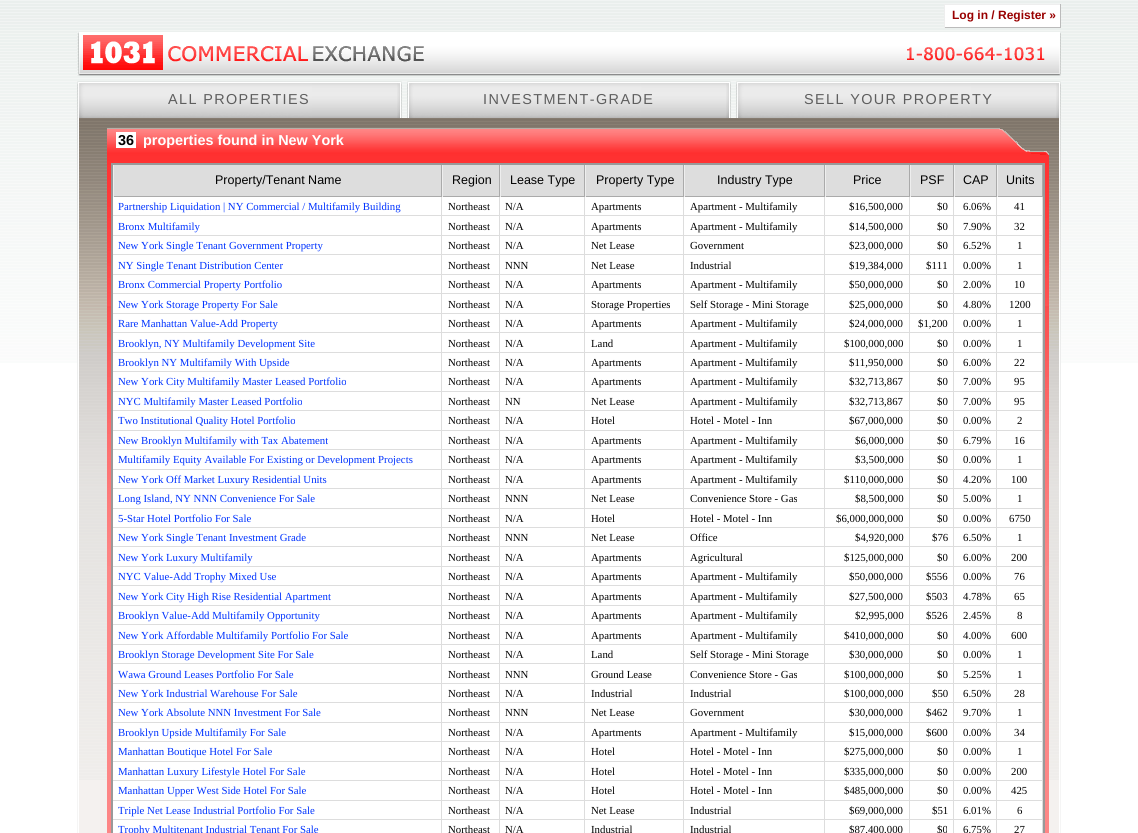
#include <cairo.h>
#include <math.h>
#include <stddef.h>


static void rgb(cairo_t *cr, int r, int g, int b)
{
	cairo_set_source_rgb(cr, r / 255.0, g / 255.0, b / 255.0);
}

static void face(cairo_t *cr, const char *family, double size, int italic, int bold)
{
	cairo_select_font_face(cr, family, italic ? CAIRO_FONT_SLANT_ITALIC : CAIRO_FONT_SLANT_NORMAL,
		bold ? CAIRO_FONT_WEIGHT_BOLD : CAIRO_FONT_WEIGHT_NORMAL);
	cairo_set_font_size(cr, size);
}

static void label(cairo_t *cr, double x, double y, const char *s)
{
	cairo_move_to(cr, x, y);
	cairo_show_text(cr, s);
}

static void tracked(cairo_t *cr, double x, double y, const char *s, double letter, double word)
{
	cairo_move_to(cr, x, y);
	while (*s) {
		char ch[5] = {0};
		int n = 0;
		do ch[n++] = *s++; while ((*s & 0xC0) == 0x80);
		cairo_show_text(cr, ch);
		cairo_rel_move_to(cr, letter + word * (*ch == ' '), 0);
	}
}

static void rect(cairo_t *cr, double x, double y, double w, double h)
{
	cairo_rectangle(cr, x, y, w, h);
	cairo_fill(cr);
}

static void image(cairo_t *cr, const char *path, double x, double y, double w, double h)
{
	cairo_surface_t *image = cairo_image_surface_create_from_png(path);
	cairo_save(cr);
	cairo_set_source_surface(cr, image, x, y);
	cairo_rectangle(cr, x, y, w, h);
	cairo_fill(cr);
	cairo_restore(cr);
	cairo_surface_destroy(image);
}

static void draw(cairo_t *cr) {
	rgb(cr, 255, 255, 255);
	cairo_paint(cr);
	image(cr, "image0.png", 0, 0, 1138, 363);
	rgb(cr, 255, 255, 255);
	rect(cr, 945, 5, 115, 22);
	face(cr, "Liberation Sans", 12, 0, 1);
	rgb(cr, 153, 0, 0);
	label(cr, 952, 19, "Log in / Register »");
	rgb(cr, 238, 238, 238);
	rect(cr, 944, 4, 117, 1);
	rgb(cr, 187, 187, 187);
	rect(cr, 1060, 4, 1, 24);
	rect(cr, 944, 27, 117, 1);
	rgb(cr, 238, 238, 238);
	rect(cr, 944, 4, 1, 24);
	image(cr, "image1.png", 80, 32, 979, 44);
	image(cr, "image2.png", 77, 32, 3, 44);
	image(cr, "image3.png", 1059, 32, 2, 44);
	image(cr, "image4.png", 83, 35, 341, 35);
	image(cr, "image5.png", 907, 47, 138, 14);
	image(cr, "image6.png", 77, 81, 320, 37);
	image(cr, "image7.png", 397, 81, 5, 37);
	face(cr, "Liberation Sans", 14.4, 0, 0);
	rgb(cr, 94, 94, 94);
	tracked(cr, 168, 104, "ALL PROPERTIES", 1.4, 0);
	image(cr, "image8.png", 407, 81, 319, 37);
	image(cr, "image7.png", 726, 81, 5, 37);
	tracked(cr, 483, 104, "INVESTMENT-GRADE", 1.4, 0);
	image(cr, "image6.png", 736, 81, 320, 37);
	image(cr, "image7.png", 1056, 81, 5, 37);
	tracked(cr, 804, 104, "SELL YOUR PROPERTY", 1.4, 0);
	image(cr, "image9.png", 77, 118, 2, 715);
	image(cr, "image10.png", 1059, 118, 2, 715);
	rgb(cr, 244, 241, 239);
	rect(cr, 79, 780, 980, 53);
	image(cr, "image11.png", 79, 118, 980, 662);
	image(cr, "image12.png", 107, 128, 942, 27);
	image(cr, "image13.png", 107, 155, 942, 678);
	rgb(cr, 255, 255, 255);
	rect(cr, 116, 132, 20, 16);
	face(cr, "Liberation Sans", 14.4, 0, 1);
	rgb(cr, 0, 0, 0);
	label(cr, 118, 145, "36");
	rgb(cr, 255, 255, 255);
	label(cr, 143, 145, "properties found in New York");
	cairo_rectangle(cr, 112, 164, 932, 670);
	rgb(cr, 153, 153, 153);
	cairo_stroke(cr);
	rgb(cr, 221, 221, 221);
	rect(cr, 114, 165, 327, 31);
	rgb(cr, 170, 170, 170);
	rect(cr, 441, 165, 1, 32);
	rect(cr, 113, 196, 329, 1);
	rgb(cr, 238, 238, 238);
	rect(cr, 113, 165, 1, 32);
	face(cr, "Liberation Sans", 12.5, 0, 0);
	rgb(cr, 0, 0, 0);
	label(cr, 215, 184, "Property/Tenant Name");
	rgb(cr, 221, 221, 221);
	rect(cr, 443, 165, 56, 31);
	rgb(cr, 170, 170, 170);
	rect(cr, 499, 165, 1, 32);
	rect(cr, 442, 196, 58, 1);
	rgb(cr, 238, 238, 238);
	rect(cr, 442, 165, 1, 32);
	rgb(cr, 0, 0, 0);
	label(cr, 452, 184, "Region");
	rgb(cr, 221, 221, 221);
	rect(cr, 501, 165, 83, 31);
	rgb(cr, 170, 170, 170);
	rect(cr, 584, 165, 1, 32);
	rect(cr, 500, 196, 85, 1);
	rgb(cr, 238, 238, 238);
	rect(cr, 500, 165, 1, 32);
	rgb(cr, 0, 0, 0);
	label(cr, 510, 184, "Lease Type");
	rgb(cr, 221, 221, 221);
	rect(cr, 586, 165, 97, 31);
	rgb(cr, 170, 170, 170);
	rect(cr, 683, 165, 1, 32);
	rect(cr, 585, 196, 99, 1);
	rgb(cr, 238, 238, 238);
	rect(cr, 585, 165, 1, 32);
	rgb(cr, 0, 0, 0);
	label(cr, 596, 184, "Property Type");
	rgb(cr, 221, 221, 221);
	rect(cr, 685, 165, 139, 31);
	rgb(cr, 170, 170, 170);
	rect(cr, 824, 165, 1, 32);
	rect(cr, 684, 196, 141, 1);
	rgb(cr, 238, 238, 238);
	rect(cr, 684, 165, 1, 32);
	rgb(cr, 0, 0, 0);
	label(cr, 717, 184, "Industry Type");
	rgb(cr, 221, 221, 221);
	rect(cr, 826, 165, 83, 31);
	rgb(cr, 170, 170, 170);
	rect(cr, 909, 165, 1, 32);
	rect(cr, 825, 196, 85, 1);
	rgb(cr, 238, 238, 238);
	rect(cr, 825, 165, 1, 32);
	rgb(cr, 0, 0, 0);
	label(cr, 853, 184, "Price");
	rgb(cr, 221, 221, 221);
	rect(cr, 911, 165, 42, 31);
	rgb(cr, 170, 170, 170);
	rect(cr, 953, 165, 1, 32);
	rect(cr, 910, 196, 44, 1);
	rgb(cr, 238, 238, 238);
	rect(cr, 910, 165, 1, 32);
	rgb(cr, 0, 0, 0);
	label(cr, 920, 184, "PSF");
	rgb(cr, 221, 221, 221);
	rect(cr, 955, 165, 41, 31);
	rgb(cr, 170, 170, 170);
	rect(cr, 996, 165, 1, 32);
	rect(cr, 954, 196, 43, 1);
	rgb(cr, 238, 238, 238);
	rect(cr, 954, 165, 1, 32);
	rgb(cr, 0, 0, 0);
	label(cr, 963, 184, "CAP");
	rgb(cr, 221, 221, 221);
	rect(cr, 998, 165, 44, 31);
	rgb(cr, 170, 170, 170);
	rect(cr, 1042, 165, 1, 32);
	rect(cr, 997, 196, 46, 1);
	rgb(cr, 238, 238, 238);
	rect(cr, 997, 165, 1, 32);
	rgb(cr, 0, 0, 0);
	label(cr, 1006, 184, "Units");
	rgb(cr, 255, 255, 255);
	rect(cr, 113, 197, 328, 18);
	rgb(cr, 221, 221, 221);
	rect(cr, 441, 197, 1, 370);
	rect(cr, 113, 215, 329, 1);
	face(cr, "Liberation Serif", 10.8, 0, 0);
	rgb(cr, 0, 51, 255);
	label(cr, 118, 210, "Partnership Liquidation | NY Commercial / Multifamily Building");
	rgb(cr, 255, 255, 255);
	rect(cr, 442, 197, 57, 18);
	rgb(cr, 221, 221, 221);
	rect(cr, 499, 197, 1, 370);
	rect(cr, 442, 215, 58, 1);
	rgb(cr, 0, 0, 0);
	label(cr, 448, 210, "Northeast");
	rgb(cr, 255, 255, 255);
	rect(cr, 500, 197, 84, 18);
	rgb(cr, 221, 221, 221);
	rect(cr, 584, 197, 1, 370);
	rect(cr, 500, 215, 85, 1);
	rgb(cr, 0, 0, 0);
	label(cr, 505, 210, "N/A");
	rgb(cr, 255, 255, 255);
	rect(cr, 585, 197, 98, 18);
	rgb(cr, 221, 221, 221);
	rect(cr, 683, 197, 1, 370);
	rect(cr, 585, 215, 99, 1);
	rgb(cr, 0, 0, 0);
	label(cr, 591, 210, "Apartments");
	rgb(cr, 255, 255, 255);
	rect(cr, 684, 197, 140, 18);
	rgb(cr, 221, 221, 221);
	rect(cr, 824, 197, 1, 370);
	rect(cr, 684, 215, 141, 1);
	rgb(cr, 0, 0, 0);
	label(cr, 690, 210, "Apartment - Multifamily");
	rgb(cr, 255, 255, 255);
	rect(cr, 825, 197, 84, 18);
	rgb(cr, 221, 221, 221);
	rect(cr, 909, 197, 1, 370);
	rect(cr, 825, 215, 85, 1);
	rgb(cr, 0, 0, 0);
	label(cr, 849, 210, "$16,500,000");
	rgb(cr, 255, 255, 255);
	rect(cr, 910, 197, 43, 18);
	rgb(cr, 221, 221, 221);
	rect(cr, 953, 197, 1, 370);
	rect(cr, 910, 215, 44, 1);
	rgb(cr, 0, 0, 0);
	label(cr, 937, 210, "$0");
	rgb(cr, 255, 255, 255);
	rect(cr, 954, 197, 42, 18);
	rgb(cr, 221, 221, 221);
	rect(cr, 996, 197, 1, 370);
	rect(cr, 954, 215, 43, 1);
	rgb(cr, 0, 0, 0);
	label(cr, 963, 210, "6.06%");
	rgb(cr, 255, 255, 255);
	rect(cr, 997, 197, 45, 18);
	rgb(cr, 221, 221, 221);
	rect(cr, 1042, 197, 1, 370);
	rect(cr, 997, 215, 46, 1);
	rgb(cr, 0, 0, 0);
	label(cr, 1014, 210, "41");
	rgb(cr, 255, 255, 255);
	rect(cr, 113, 216, 328, 19);
	rgb(cr, 221, 221, 221);
	rect(cr, 113, 235, 930, 1);
	rgb(cr, 0, 51, 255);
	label(cr, 118, 230, "Bronx Multifamily");
	rgb(cr, 255, 255, 255);
	rect(cr, 442, 216, 57, 19);
	rgb(cr, 0, 0, 0);
	label(cr, 448, 230, "Northeast");
	rgb(cr, 255, 255, 255);
	rect(cr, 500, 216, 84, 19);
	rgb(cr, 0, 0, 0);
	label(cr, 505, 230, "N/A");
	rgb(cr, 255, 255, 255);
	rect(cr, 585, 216, 98, 19);
	rgb(cr, 0, 0, 0);
	label(cr, 591, 230, "Apartments");
	rgb(cr, 255, 255, 255);
	rect(cr, 684, 216, 140, 19);
	rgb(cr, 0, 0, 0);
	label(cr, 690, 230, "Apartment - Multifamily");
	rgb(cr, 255, 255, 255);
	rect(cr, 825, 216, 84, 19);
	rgb(cr, 0, 0, 0);
	label(cr, 849, 230, "$14,500,000");
	rgb(cr, 255, 255, 255);
	rect(cr, 910, 216, 43, 19);
	rgb(cr, 0, 0, 0);
	label(cr, 937, 230, "$0");
	rgb(cr, 255, 255, 255);
	rect(cr, 954, 216, 42, 19);
	rgb(cr, 0, 0, 0);
	label(cr, 963, 230, "7.90%");
	rgb(cr, 255, 255, 255);
	rect(cr, 997, 216, 45, 19);
	rgb(cr, 0, 0, 0);
	label(cr, 1014, 230, "32");
	rgb(cr, 255, 255, 255);
	rect(cr, 113, 236, 328, 18);
	rgb(cr, 221, 221, 221);
	rect(cr, 113, 254, 930, 1);
	rgb(cr, 0, 51, 255);
	label(cr, 118, 249, "New York Single Tenant Government Property");
	rgb(cr, 255, 255, 255);
	rect(cr, 442, 236, 57, 18);
	rgb(cr, 0, 0, 0);
	label(cr, 448, 249, "Northeast");
	rgb(cr, 255, 255, 255);
	rect(cr, 500, 236, 84, 18);
	rgb(cr, 0, 0, 0);
	label(cr, 505, 249, "N/A");
	rgb(cr, 255, 255, 255);
	rect(cr, 585, 236, 98, 18);
	rgb(cr, 0, 0, 0);
	label(cr, 591, 249, "Net Lease");
	rgb(cr, 255, 255, 255);
	rect(cr, 684, 236, 140, 18);
	rgb(cr, 0, 0, 0);
	label(cr, 690, 249, "Government");
	rgb(cr, 255, 255, 255);
	rect(cr, 825, 236, 84, 18);
	rgb(cr, 0, 0, 0);
	label(cr, 849, 249, "$23,000,000");
	rgb(cr, 255, 255, 255);
	rect(cr, 910, 236, 43, 18);
	rgb(cr, 0, 0, 0);
	label(cr, 937, 249, "$0");
	rgb(cr, 255, 255, 255);
	rect(cr, 954, 236, 42, 18);
	rgb(cr, 0, 0, 0);
	label(cr, 963, 249, "6.52%");
	rgb(cr, 255, 255, 255);
	rect(cr, 997, 236, 45, 18);
	rgb(cr, 0, 0, 0);
	label(cr, 1017, 249, "1");
	rgb(cr, 255, 255, 255);
	rect(cr, 113, 255, 328, 19);
	rgb(cr, 221, 221, 221);
	rect(cr, 113, 274, 930, 1);
	rgb(cr, 0, 51, 255);
	label(cr, 118, 269, "NY Single Tenant Distribution Center");
	rgb(cr, 255, 255, 255);
	rect(cr, 442, 255, 57, 19);
	rgb(cr, 0, 0, 0);
	label(cr, 448, 269, "Northeast");
	rgb(cr, 255, 255, 255);
	rect(cr, 500, 255, 84, 19);
	rgb(cr, 0, 0, 0);
	label(cr, 505, 269, "NNN");
	rgb(cr, 255, 255, 255);
	rect(cr, 585, 255, 98, 19);
	rgb(cr, 0, 0, 0);
	label(cr, 591, 269, "Net Lease");
	rgb(cr, 255, 255, 255);
	rect(cr, 684, 255, 140, 19);
	rgb(cr, 0, 0, 0);
	label(cr, 690, 269, "Industrial");
	rgb(cr, 255, 255, 255);
	rect(cr, 825, 255, 84, 19);
	rgb(cr, 0, 0, 0);
	label(cr, 849, 269, "$19,384,000");
	rgb(cr, 255, 255, 255);
	rect(cr, 910, 255, 43, 19);
	rgb(cr, 0, 0, 0);
	label(cr, 926, 269, "$111");
	rgb(cr, 255, 255, 255);
	rect(cr, 954, 255, 42, 19);
	rgb(cr, 0, 0, 0);
	label(cr, 963, 269, "0.00%");
	rgb(cr, 255, 255, 255);
	rect(cr, 997, 255, 45, 19);
	rgb(cr, 0, 0, 0);
	label(cr, 1017, 269, "1");
	rgb(cr, 255, 255, 255);
	rect(cr, 113, 275, 328, 18);
	rgb(cr, 221, 221, 221);
	rect(cr, 113, 293, 930, 1);
	rgb(cr, 0, 51, 255);
	label(cr, 118, 288, "Bronx Commercial Property Portfolio");
	rgb(cr, 255, 255, 255);
	rect(cr, 442, 275, 57, 18);
	rgb(cr, 0, 0, 0);
	label(cr, 448, 288, "Northeast");
	rgb(cr, 255, 255, 255);
	rect(cr, 500, 275, 84, 18);
	rgb(cr, 0, 0, 0);
	label(cr, 505, 288, "N/A");
	rgb(cr, 255, 255, 255);
	rect(cr, 585, 275, 98, 18);
	rgb(cr, 0, 0, 0);
	label(cr, 591, 288, "Apartments");
	rgb(cr, 255, 255, 255);
	rect(cr, 684, 275, 140, 18);
	rgb(cr, 0, 0, 0);
	label(cr, 690, 288, "Apartment - Multifamily");
	rgb(cr, 255, 255, 255);
	rect(cr, 825, 275, 84, 18);
	rgb(cr, 0, 0, 0);
	label(cr, 849, 288, "$50,000,000");
	rgb(cr, 255, 255, 255);
	rect(cr, 910, 275, 43, 18);
	rgb(cr, 0, 0, 0);
	label(cr, 937, 288, "$0");
	rgb(cr, 255, 255, 255);
	rect(cr, 954, 275, 42, 18);
	rgb(cr, 0, 0, 0);
	label(cr, 963, 288, "2.00%");
	rgb(cr, 255, 255, 255);
	rect(cr, 997, 275, 45, 18);
	rgb(cr, 0, 0, 0);
	label(cr, 1014, 288, "10");
	rgb(cr, 255, 255, 255);
	rect(cr, 113, 294, 328, 19);
	rgb(cr, 221, 221, 221);
	rect(cr, 113, 313, 930, 1);
	rgb(cr, 0, 51, 255);
	label(cr, 118, 308, "New York Storage Property For Sale");
	rgb(cr, 255, 255, 255);
	rect(cr, 442, 294, 57, 19);
	rgb(cr, 0, 0, 0);
	label(cr, 448, 308, "Northeast");
	rgb(cr, 255, 255, 255);
	rect(cr, 500, 294, 84, 19);
	rgb(cr, 0, 0, 0);
	label(cr, 505, 308, "N/A");
	rgb(cr, 255, 255, 255);
	rect(cr, 585, 294, 98, 19);
	rgb(cr, 0, 0, 0);
	label(cr, 591, 308, "Storage Properties");
	rgb(cr, 255, 255, 255);
	rect(cr, 684, 294, 140, 19);
	rgb(cr, 0, 0, 0);
	label(cr, 690, 308, "Self Storage - Mini Storage");
	rgb(cr, 255, 255, 255);
	rect(cr, 825, 294, 84, 19);
	rgb(cr, 0, 0, 0);
	label(cr, 849, 308, "$25,000,000");
	rgb(cr, 255, 255, 255);
	rect(cr, 910, 294, 43, 19);
	rgb(cr, 0, 0, 0);
	label(cr, 937, 308, "$0");
	rgb(cr, 255, 255, 255);
	rect(cr, 954, 294, 42, 19);
	rgb(cr, 0, 0, 0);
	label(cr, 963, 308, "4.80%");
	rgb(cr, 255, 255, 255);
	rect(cr, 997, 294, 45, 19);
	rgb(cr, 0, 0, 0);
	label(cr, 1009, 308, "1200");
	rgb(cr, 255, 255, 255);
	rect(cr, 113, 314, 328, 18);
	rgb(cr, 221, 221, 221);
	rect(cr, 113, 332, 930, 1);
	rgb(cr, 0, 51, 255);
	label(cr, 118, 327, "Rare Manhattan Value-Add Property");
	rgb(cr, 255, 255, 255);
	rect(cr, 442, 314, 57, 18);
	rgb(cr, 0, 0, 0);
	label(cr, 448, 327, "Northeast");
	rgb(cr, 255, 255, 255);
	rect(cr, 500, 314, 84, 18);
	rgb(cr, 0, 0, 0);
	label(cr, 505, 327, "N/A");
	rgb(cr, 255, 255, 255);
	rect(cr, 585, 314, 98, 18);
	rgb(cr, 0, 0, 0);
	label(cr, 591, 327, "Apartments");
	rgb(cr, 255, 255, 255);
	rect(cr, 684, 314, 140, 18);
	rgb(cr, 0, 0, 0);
	label(cr, 690, 327, "Apartment - Multifamily");
	rgb(cr, 255, 255, 255);
	rect(cr, 825, 314, 84, 18);
	rgb(cr, 0, 0, 0);
	label(cr, 849, 327, "$24,000,000");
	rgb(cr, 255, 255, 255);
	rect(cr, 910, 314, 43, 18);
	rgb(cr, 0, 0, 0);
	label(cr, 918, 327, "$1,200");
	rgb(cr, 255, 255, 255);
	rect(cr, 954, 314, 42, 18);
	rgb(cr, 0, 0, 0);
	label(cr, 963, 327, "0.00%");
	rgb(cr, 255, 255, 255);
	rect(cr, 997, 314, 45, 18);
	rgb(cr, 0, 0, 0);
	label(cr, 1017, 327, "1");
	rgb(cr, 255, 255, 255);
	rect(cr, 113, 333, 328, 19);
	rgb(cr, 221, 221, 221);
	rect(cr, 113, 352, 930, 1);
	rgb(cr, 0, 51, 255);
	label(cr, 118, 347, "Brooklyn, NY Multifamily Development Site");
	rgb(cr, 255, 255, 255);
	rect(cr, 442, 333, 57, 19);
	rgb(cr, 0, 0, 0);
	label(cr, 448, 347, "Northeast");
	rgb(cr, 255, 255, 255);
	rect(cr, 500, 333, 84, 19);
	rgb(cr, 0, 0, 0);
	label(cr, 505, 347, "N/A");
	rgb(cr, 255, 255, 255);
	rect(cr, 585, 333, 98, 19);
	rgb(cr, 0, 0, 0);
	label(cr, 591, 347, "Land");
	rgb(cr, 255, 255, 255);
	rect(cr, 684, 333, 140, 19);
	rgb(cr, 0, 0, 0);
	label(cr, 690, 347, "Apartment - Multifamily");
	rgb(cr, 255, 255, 255);
	rect(cr, 825, 333, 84, 19);
	rgb(cr, 0, 0, 0);
	label(cr, 844, 347, "$100,000,000");
	rgb(cr, 255, 255, 255);
	rect(cr, 910, 333, 43, 19);
	rgb(cr, 0, 0, 0);
	label(cr, 937, 347, "$0");
	rgb(cr, 255, 255, 255);
	rect(cr, 954, 333, 42, 19);
	rgb(cr, 0, 0, 0);
	label(cr, 963, 347, "0.00%");
	rgb(cr, 255, 255, 255);
	rect(cr, 997, 333, 45, 19);
	rgb(cr, 0, 0, 0);
	label(cr, 1017, 347, "1");
	rgb(cr, 255, 255, 255);
	rect(cr, 113, 353, 328, 18);
	rgb(cr, 221, 221, 221);
	rect(cr, 113, 371, 930, 1);
	rgb(cr, 0, 51, 255);
	label(cr, 118, 366, "Brooklyn NY Multifamily With Upside");
	rgb(cr, 255, 255, 255);
	rect(cr, 442, 353, 57, 18);
	rgb(cr, 0, 0, 0);
	label(cr, 448, 366, "Northeast");
	rgb(cr, 255, 255, 255);
	rect(cr, 500, 353, 84, 18);
	rgb(cr, 0, 0, 0);
	label(cr, 505, 366, "N/A");
	rgb(cr, 255, 255, 255);
	rect(cr, 585, 353, 98, 18);
	rgb(cr, 0, 0, 0);
	label(cr, 591, 366, "Apartments");
	rgb(cr, 255, 255, 255);
	rect(cr, 684, 353, 140, 18);
	rgb(cr, 0, 0, 0);
	label(cr, 690, 366, "Apartment - Multifamily");
	rgb(cr, 255, 255, 255);
	rect(cr, 825, 353, 84, 18);
	rgb(cr, 0, 0, 0);
	label(cr, 849, 366, "$11,950,000");
	rgb(cr, 255, 255, 255);
	rect(cr, 910, 353, 43, 18);
	rgb(cr, 0, 0, 0);
	label(cr, 937, 366, "$0");
	rgb(cr, 255, 255, 255);
	rect(cr, 954, 353, 42, 18);
	rgb(cr, 0, 0, 0);
	label(cr, 963, 366, "6.00%");
	rgb(cr, 255, 255, 255);
	rect(cr, 997, 353, 45, 18);
	rgb(cr, 0, 0, 0);
	label(cr, 1014, 366, "22");
	rgb(cr, 255, 255, 255);
	rect(cr, 113, 372, 328, 19);
	rgb(cr, 221, 221, 221);
	rect(cr, 113, 391, 930, 1);
	rgb(cr, 0, 51, 255);
	label(cr, 118, 385, "New York City Multifamily Master Leased Portfolio");
	rgb(cr, 255, 255, 255);
	rect(cr, 442, 372, 57, 19);
	rgb(cr, 0, 0, 0);
	label(cr, 448, 385, "Northeast");
	rgb(cr, 255, 255, 255);
	rect(cr, 500, 372, 84, 19);
	rgb(cr, 0, 0, 0);
	label(cr, 505, 385, "N/A");
	rgb(cr, 255, 255, 255);
	rect(cr, 585, 372, 98, 19);
	rgb(cr, 0, 0, 0);
	label(cr, 591, 385, "Apartments");
	rgb(cr, 255, 255, 255);
	rect(cr, 684, 372, 140, 19);
	rgb(cr, 0, 0, 0);
	label(cr, 690, 385, "Apartment - Multifamily");
	rgb(cr, 255, 255, 255);
	rect(cr, 825, 372, 84, 19);
	rgb(cr, 0, 0, 0);
	label(cr, 849, 385, "$32,713,867");
	rgb(cr, 255, 255, 255);
	rect(cr, 910, 372, 43, 19);
	rgb(cr, 0, 0, 0);
	label(cr, 937, 385, "$0");
	rgb(cr, 255, 255, 255);
	rect(cr, 954, 372, 42, 19);
	rgb(cr, 0, 0, 0);
	label(cr, 963, 385, "7.00%");
	rgb(cr, 255, 255, 255);
	rect(cr, 997, 372, 45, 19);
	rgb(cr, 0, 0, 0);
	label(cr, 1014, 385, "95");
	rgb(cr, 255, 255, 255);
	rect(cr, 113, 392, 328, 18);
	rgb(cr, 221, 221, 221);
	rect(cr, 113, 410, 930, 1);
	rgb(cr, 0, 51, 255);
	label(cr, 118, 405, "NYC Multifamily Master Leased Portfolio");
	rgb(cr, 255, 255, 255);
	rect(cr, 442, 392, 57, 18);
	rgb(cr, 0, 0, 0);
	label(cr, 448, 405, "Northeast");
	rgb(cr, 255, 255, 255);
	rect(cr, 500, 392, 84, 18);
	rgb(cr, 0, 0, 0);
	label(cr, 505, 405, "NN");
	rgb(cr, 255, 255, 255);
	rect(cr, 585, 392, 98, 18);
	rgb(cr, 0, 0, 0);
	label(cr, 591, 405, "Net Lease");
	rgb(cr, 255, 255, 255);
	rect(cr, 684, 392, 140, 18);
	rgb(cr, 0, 0, 0);
	label(cr, 690, 405, "Apartment - Multifamily");
	rgb(cr, 255, 255, 255);
	rect(cr, 825, 392, 84, 18);
	rgb(cr, 0, 0, 0);
	label(cr, 849, 405, "$32,713,867");
	rgb(cr, 255, 255, 255);
	rect(cr, 910, 392, 43, 18);
	rgb(cr, 0, 0, 0);
	label(cr, 937, 405, "$0");
	rgb(cr, 255, 255, 255);
	rect(cr, 954, 392, 42, 18);
	rgb(cr, 0, 0, 0);
	label(cr, 963, 405, "7.00%");
	rgb(cr, 255, 255, 255);
	rect(cr, 997, 392, 45, 18);
	rgb(cr, 0, 0, 0);
	label(cr, 1014, 405, "95");
	rgb(cr, 255, 255, 255);
	rect(cr, 113, 411, 328, 19);
	rgb(cr, 221, 221, 221);
	rect(cr, 113, 430, 930, 1);
	rgb(cr, 0, 51, 255);
	label(cr, 118, 424, "Two Institutional Quality Hotel Portfolio");
	rgb(cr, 255, 255, 255);
	rect(cr, 442, 411, 57, 19);
	rgb(cr, 0, 0, 0);
	label(cr, 448, 424, "Northeast");
	rgb(cr, 255, 255, 255);
	rect(cr, 500, 411, 84, 19);
	rgb(cr, 0, 0, 0);
	label(cr, 505, 424, "N/A");
	rgb(cr, 255, 255, 255);
	rect(cr, 585, 411, 98, 19);
	rgb(cr, 0, 0, 0);
	label(cr, 591, 424, "Hotel");
	rgb(cr, 255, 255, 255);
	rect(cr, 684, 411, 140, 19);
	rgb(cr, 0, 0, 0);
	label(cr, 690, 424, "Hotel - Motel - Inn");
	rgb(cr, 255, 255, 255);
	rect(cr, 825, 411, 84, 19);
	rgb(cr, 0, 0, 0);
	label(cr, 849, 424, "$67,000,000");
	rgb(cr, 255, 255, 255);
	rect(cr, 910, 411, 43, 19);
	rgb(cr, 0, 0, 0);
	label(cr, 937, 424, "$0");
	rgb(cr, 255, 255, 255);
	rect(cr, 954, 411, 42, 19);
	rgb(cr, 0, 0, 0);
	label(cr, 963, 424, "0.00%");
	rgb(cr, 255, 255, 255);
	rect(cr, 997, 411, 45, 19);
	rgb(cr, 0, 0, 0);
	label(cr, 1017, 424, "2");
	rgb(cr, 255, 255, 255);
	rect(cr, 113, 431, 328, 18);
	rgb(cr, 221, 221, 221);
	rect(cr, 113, 449, 930, 1);
	rgb(cr, 0, 51, 255);
	label(cr, 118, 444, "New Brooklyn Multifamily with Tax Abatement");
	rgb(cr, 255, 255, 255);
	rect(cr, 442, 431, 57, 18);
	rgb(cr, 0, 0, 0);
	label(cr, 448, 444, "Northeast");
	rgb(cr, 255, 255, 255);
	rect(cr, 500, 431, 84, 18);
	rgb(cr, 0, 0, 0);
	label(cr, 505, 444, "N/A");
	rgb(cr, 255, 255, 255);
	rect(cr, 585, 431, 98, 18);
	rgb(cr, 0, 0, 0);
	label(cr, 591, 444, "Apartments");
	rgb(cr, 255, 255, 255);
	rect(cr, 684, 431, 140, 18);
	rgb(cr, 0, 0, 0);
	label(cr, 690, 444, "Apartment - Multifamily");
	rgb(cr, 255, 255, 255);
	rect(cr, 825, 431, 84, 18);
	rgb(cr, 0, 0, 0);
	label(cr, 855, 444, "$6,000,000");
	rgb(cr, 255, 255, 255);
	rect(cr, 910, 431, 43, 18);
	rgb(cr, 0, 0, 0);
	label(cr, 937, 444, "$0");
	rgb(cr, 255, 255, 255);
	rect(cr, 954, 431, 42, 18);
	rgb(cr, 0, 0, 0);
	label(cr, 963, 444, "6.79%");
	rgb(cr, 255, 255, 255);
	rect(cr, 997, 431, 45, 18);
	rgb(cr, 0, 0, 0);
	label(cr, 1014, 444, "16");
	rgb(cr, 255, 255, 255);
	rect(cr, 113, 450, 328, 19);
	rgb(cr, 221, 221, 221);
	rect(cr, 113, 469, 930, 1);
	rgb(cr, 0, 51, 255);
	label(cr, 118, 463, "Multifamily Equity Available For Existing or Development Projects");
	rgb(cr, 255, 255, 255);
	rect(cr, 442, 450, 57, 19);
	rgb(cr, 0, 0, 0);
	label(cr, 448, 463, "Northeast");
	rgb(cr, 255, 255, 255);
	rect(cr, 500, 450, 84, 19);
	rgb(cr, 0, 0, 0);
	label(cr, 505, 463, "N/A");
	rgb(cr, 255, 255, 255);
	rect(cr, 585, 450, 98, 19);
	rgb(cr, 0, 0, 0);
	label(cr, 591, 463, "Apartments");
	rgb(cr, 255, 255, 255);
	rect(cr, 684, 450, 140, 19);
	rgb(cr, 0, 0, 0);
	label(cr, 690, 463, "Apartment - Multifamily");
	rgb(cr, 255, 255, 255);
	rect(cr, 825, 450, 84, 19);
	rgb(cr, 0, 0, 0);
	label(cr, 855, 463, "$3,500,000");
	rgb(cr, 255, 255, 255);
	rect(cr, 910, 450, 43, 19);
	rgb(cr, 0, 0, 0);
	label(cr, 937, 463, "$0");
	rgb(cr, 255, 255, 255);
	rect(cr, 954, 450, 42, 19);
	rgb(cr, 0, 0, 0);
	label(cr, 963, 463, "0.00%");
	rgb(cr, 255, 255, 255);
	rect(cr, 997, 450, 45, 19);
	rgb(cr, 0, 0, 0);
	label(cr, 1017, 463, "1");
	rgb(cr, 255, 255, 255);
	rect(cr, 113, 470, 328, 18);
	rgb(cr, 221, 221, 221);
	rect(cr, 113, 488, 930, 1);
	rgb(cr, 0, 51, 255);
	label(cr, 118, 483, "New York Off Market Luxury Residential Units");
	rgb(cr, 255, 255, 255);
	rect(cr, 442, 470, 57, 18);
	rgb(cr, 0, 0, 0);
	label(cr, 448, 483, "Northeast");
	rgb(cr, 255, 255, 255);
	rect(cr, 500, 470, 84, 18);
	rgb(cr, 0, 0, 0);
	label(cr, 505, 483, "N/A");
	rgb(cr, 255, 255, 255);
	rect(cr, 585, 470, 98, 18);
	rgb(cr, 0, 0, 0);
	label(cr, 591, 483, "Apartments");
	rgb(cr, 255, 255, 255);
	rect(cr, 684, 470, 140, 18);
	rgb(cr, 0, 0, 0);
	label(cr, 690, 483, "Apartment - Multifamily");
	rgb(cr, 255, 255, 255);
	rect(cr, 825, 470, 84, 18);
	rgb(cr, 0, 0, 0);
	label(cr, 844, 483, "$110,000,000");
	rgb(cr, 255, 255, 255);
	rect(cr, 910, 470, 43, 18);
	rgb(cr, 0, 0, 0);
	label(cr, 937, 483, "$0");
	rgb(cr, 255, 255, 255);
	rect(cr, 954, 470, 42, 18);
	rgb(cr, 0, 0, 0);
	label(cr, 963, 483, "4.20%");
	rgb(cr, 255, 255, 255);
	rect(cr, 997, 470, 45, 18);
	rgb(cr, 0, 0, 0);
	label(cr, 1011, 483, "100");
	rgb(cr, 255, 255, 255);
	rect(cr, 113, 489, 328, 19);
	rgb(cr, 221, 221, 221);
	rect(cr, 113, 508, 930, 1);
	rgb(cr, 0, 51, 255);
	label(cr, 118, 502, "Long Island, NY NNN Convenience For Sale");
	rgb(cr, 255, 255, 255);
	rect(cr, 442, 489, 57, 19);
	rgb(cr, 0, 0, 0);
	label(cr, 448, 502, "Northeast");
	rgb(cr, 255, 255, 255);
	rect(cr, 500, 489, 84, 19);
	rgb(cr, 0, 0, 0);
	label(cr, 505, 502, "NNN");
	rgb(cr, 255, 255, 255);
	rect(cr, 585, 489, 98, 19);
	rgb(cr, 0, 0, 0);
	label(cr, 591, 502, "Net Lease");
	rgb(cr, 255, 255, 255);
	rect(cr, 684, 489, 140, 19);
	rgb(cr, 0, 0, 0);
	label(cr, 690, 502, "Convenience Store - Gas");
	rgb(cr, 255, 255, 255);
	rect(cr, 825, 489, 84, 19);
	rgb(cr, 0, 0, 0);
	label(cr, 855, 502, "$8,500,000");
	rgb(cr, 255, 255, 255);
	rect(cr, 910, 489, 43, 19);
	rgb(cr, 0, 0, 0);
	label(cr, 937, 502, "$0");
	rgb(cr, 255, 255, 255);
	rect(cr, 954, 489, 42, 19);
	rgb(cr, 0, 0, 0);
	label(cr, 963, 502, "5.00%");
	rgb(cr, 255, 255, 255);
	rect(cr, 997, 489, 45, 19);
	rgb(cr, 0, 0, 0);
	label(cr, 1017, 502, "1");
	rgb(cr, 255, 255, 255);
	rect(cr, 113, 509, 328, 18);
	rgb(cr, 221, 221, 221);
	rect(cr, 113, 527, 930, 1);
	rgb(cr, 0, 51, 255);
	label(cr, 118, 522, "5-Star Hotel Portfolio For Sale");
	rgb(cr, 255, 255, 255);
	rect(cr, 442, 509, 57, 18);
	rgb(cr, 0, 0, 0);
	label(cr, 448, 522, "Northeast");
	rgb(cr, 255, 255, 255);
	rect(cr, 500, 509, 84, 18);
	rgb(cr, 0, 0, 0);
	label(cr, 505, 522, "N/A");
	rgb(cr, 255, 255, 255);
	rect(cr, 585, 509, 98, 18);
	rgb(cr, 0, 0, 0);
	label(cr, 591, 522, "Hotel");
	rgb(cr, 255, 255, 255);
	rect(cr, 684, 509, 140, 18);
	rgb(cr, 0, 0, 0);
	label(cr, 690, 522, "Hotel - Motel - Inn");
	rgb(cr, 255, 255, 255);
	rect(cr, 825, 509, 84, 18);
	rgb(cr, 0, 0, 0);
	label(cr, 836, 522, "$6,000,000,000");
	rgb(cr, 255, 255, 255);
	rect(cr, 910, 509, 43, 18);
	rgb(cr, 0, 0, 0);
	label(cr, 937, 522, "$0");
	rgb(cr, 255, 255, 255);
	rect(cr, 954, 509, 42, 18);
	rgb(cr, 0, 0, 0);
	label(cr, 963, 522, "0.00%");
	rgb(cr, 255, 255, 255);
	rect(cr, 997, 509, 45, 18);
	rgb(cr, 0, 0, 0);
	label(cr, 1009, 522, "6750");
	rgb(cr, 255, 255, 255);
	rect(cr, 113, 528, 328, 18);
	rgb(cr, 221, 221, 221);
	rect(cr, 113, 546, 930, 1);
	rgb(cr, 0, 51, 255);
	label(cr, 118, 541, "New York Single Tenant Investment Grade");
	rgb(cr, 255, 255, 255);
	rect(cr, 442, 528, 57, 18);
	rgb(cr, 0, 0, 0);
	label(cr, 448, 541, "Northeast");
	rgb(cr, 255, 255, 255);
	rect(cr, 500, 528, 84, 18);
	rgb(cr, 0, 0, 0);
	label(cr, 505, 541, "NNN");
	rgb(cr, 255, 255, 255);
	rect(cr, 585, 528, 98, 18);
	rgb(cr, 0, 0, 0);
	label(cr, 591, 541, "Net Lease");
	rgb(cr, 255, 255, 255);
	rect(cr, 684, 528, 140, 18);
	rgb(cr, 0, 0, 0);
	label(cr, 690, 541, "Office");
	rgb(cr, 255, 255, 255);
	rect(cr, 825, 528, 84, 18);
	rgb(cr, 0, 0, 0);
	label(cr, 855, 541, "$4,920,000");
	rgb(cr, 255, 255, 255);
	rect(cr, 910, 528, 43, 18);
	rgb(cr, 0, 0, 0);
	label(cr, 932, 541, "$76");
	rgb(cr, 255, 255, 255);
	rect(cr, 954, 528, 42, 18);
	rgb(cr, 0, 0, 0);
	label(cr, 963, 541, "6.50%");
	rgb(cr, 255, 255, 255);
	rect(cr, 997, 528, 45, 18);
	rgb(cr, 0, 0, 0);
	label(cr, 1017, 541, "1");
	rgb(cr, 255, 255, 255);
	rect(cr, 113, 547, 328, 19);
	rgb(cr, 221, 221, 221);
	rect(cr, 113, 566, 930, 1);
	rgb(cr, 0, 51, 255);
	label(cr, 118, 561, "New York Luxury Multifamily");
	rgb(cr, 255, 255, 255);
	rect(cr, 442, 547, 57, 19);
	rgb(cr, 0, 0, 0);
	label(cr, 448, 561, "Northeast");
	rgb(cr, 255, 255, 255);
	rect(cr, 500, 547, 84, 19);
	rgb(cr, 0, 0, 0);
	label(cr, 505, 561, "N/A");
	rgb(cr, 255, 255, 255);
	rect(cr, 585, 547, 98, 19);
	rgb(cr, 0, 0, 0);
	label(cr, 591, 561, "Apartments");
	rgb(cr, 255, 255, 255);
	rect(cr, 684, 547, 140, 19);
	rgb(cr, 0, 0, 0);
	label(cr, 690, 561, "Agricultural");
	rgb(cr, 255, 255, 255);
	rect(cr, 825, 547, 84, 19);
	rgb(cr, 0, 0, 0);
	label(cr, 844, 561, "$125,000,000");
	rgb(cr, 255, 255, 255);
	rect(cr, 910, 547, 43, 19);
	rgb(cr, 0, 0, 0);
	label(cr, 937, 561, "$0");
	rgb(cr, 255, 255, 255);
	rect(cr, 954, 547, 42, 19);
	rgb(cr, 0, 0, 0);
	label(cr, 963, 561, "6.00%");
	rgb(cr, 255, 255, 255);
	rect(cr, 997, 547, 45, 19);
	rgb(cr, 0, 0, 0);
	label(cr, 1011, 561, "200");
	rgb(cr, 255, 255, 255);
	rect(cr, 113, 567, 328, 18);
	rgb(cr, 221, 221, 221);
	rect(cr, 441, 567, 1, 266);
	rect(cr, 113, 585, 329, 1);
	rgb(cr, 0, 51, 255);
	label(cr, 118, 580, "NYC Value-Add Trophy Mixed Use");
	rgb(cr, 255, 255, 255);
	rect(cr, 442, 567, 57, 18);
	rgb(cr, 221, 221, 221);
	rect(cr, 499, 567, 1, 266);
	rect(cr, 442, 585, 58, 1);
	rgb(cr, 0, 0, 0);
	label(cr, 448, 580, "Northeast");
	rgb(cr, 255, 255, 255);
	rect(cr, 500, 567, 84, 18);
	rgb(cr, 221, 221, 221);
	rect(cr, 584, 567, 1, 266);
	rect(cr, 500, 585, 85, 1);
	rgb(cr, 0, 0, 0);
	label(cr, 505, 580, "N/A");
	rgb(cr, 255, 255, 255);
	rect(cr, 585, 567, 98, 18);
	rgb(cr, 221, 221, 221);
	rect(cr, 683, 567, 1, 266);
	rect(cr, 585, 585, 99, 1);
	rgb(cr, 0, 0, 0);
	label(cr, 591, 580, "Apartments");
	rgb(cr, 255, 255, 255);
	rect(cr, 684, 567, 140, 18);
	rgb(cr, 221, 221, 221);
	rect(cr, 824, 567, 1, 266);
	rect(cr, 684, 585, 141, 1);
	rgb(cr, 0, 0, 0);
	label(cr, 690, 580, "Apartment - Multifamily");
	rgb(cr, 255, 255, 255);
	rect(cr, 825, 567, 84, 18);
	rgb(cr, 221, 221, 221);
	rect(cr, 909, 567, 1, 266);
	rect(cr, 825, 585, 85, 1);
	rgb(cr, 0, 0, 0);
	label(cr, 849, 580, "$50,000,000");
	rgb(cr, 255, 255, 255);
	rect(cr, 910, 567, 43, 18);
	rgb(cr, 221, 221, 221);
	rect(cr, 953, 567, 1, 266);
	rect(cr, 910, 585, 44, 1);
	rgb(cr, 0, 0, 0);
	label(cr, 926, 580, "$556");
	rgb(cr, 255, 255, 255);
	rect(cr, 954, 567, 42, 18);
	rgb(cr, 221, 221, 221);
	rect(cr, 996, 567, 1, 266);
	rect(cr, 954, 585, 43, 1);
	rgb(cr, 0, 0, 0);
	label(cr, 963, 580, "0.00%");
	rgb(cr, 255, 255, 255);
	rect(cr, 997, 567, 45, 18);
	rgb(cr, 221, 221, 221);
	rect(cr, 1042, 567, 1, 266);
	rect(cr, 997, 585, 46, 1);
	rgb(cr, 0, 0, 0);
	label(cr, 1014, 580, "76");
	rgb(cr, 255, 255, 255);
	rect(cr, 113, 586, 328, 19);
	rgb(cr, 221, 221, 221);
	rect(cr, 113, 605, 930, 1);
	rgb(cr, 0, 51, 255);
	label(cr, 118, 600, "New York City High Rise Residential Apartment");
	rgb(cr, 255, 255, 255);
	rect(cr, 442, 586, 57, 19);
	rgb(cr, 0, 0, 0);
	label(cr, 448, 600, "Northeast");
	rgb(cr, 255, 255, 255);
	rect(cr, 500, 586, 84, 19);
	rgb(cr, 0, 0, 0);
	label(cr, 505, 600, "N/A");
	rgb(cr, 255, 255, 255);
	rect(cr, 585, 586, 98, 19);
	rgb(cr, 0, 0, 0);
	label(cr, 591, 600, "Apartments");
	rgb(cr, 255, 255, 255);
	rect(cr, 684, 586, 140, 19);
	rgb(cr, 0, 0, 0);
	label(cr, 690, 600, "Apartment - Multifamily");
	rgb(cr, 255, 255, 255);
	rect(cr, 825, 586, 84, 19);
	rgb(cr, 0, 0, 0);
	label(cr, 849, 600, "$27,500,000");
	rgb(cr, 255, 255, 255);
	rect(cr, 910, 586, 43, 19);
	rgb(cr, 0, 0, 0);
	label(cr, 926, 600, "$503");
	rgb(cr, 255, 255, 255);
	rect(cr, 954, 586, 42, 19);
	rgb(cr, 0, 0, 0);
	label(cr, 963, 600, "4.78%");
	rgb(cr, 255, 255, 255);
	rect(cr, 997, 586, 45, 19);
	rgb(cr, 0, 0, 0);
	label(cr, 1014, 600, "65");
	rgb(cr, 255, 255, 255);
	rect(cr, 113, 606, 328, 18);
	rgb(cr, 221, 221, 221);
	rect(cr, 113, 624, 930, 1);
	rgb(cr, 0, 51, 255);
	label(cr, 118, 619, "Brooklyn Value-Add Multifamily Opportunity");
	rgb(cr, 255, 255, 255);
	rect(cr, 442, 606, 57, 18);
	rgb(cr, 0, 0, 0);
	label(cr, 448, 619, "Northeast");
	rgb(cr, 255, 255, 255);
	rect(cr, 500, 606, 84, 18);
	rgb(cr, 0, 0, 0);
	label(cr, 505, 619, "N/A");
	rgb(cr, 255, 255, 255);
	rect(cr, 585, 606, 98, 18);
	rgb(cr, 0, 0, 0);
	label(cr, 591, 619, "Apartments");
	rgb(cr, 255, 255, 255);
	rect(cr, 684, 606, 140, 18);
	rgb(cr, 0, 0, 0);
	label(cr, 690, 619, "Apartment - Multifamily");
	rgb(cr, 255, 255, 255);
	rect(cr, 825, 606, 84, 18);
	rgb(cr, 0, 0, 0);
	label(cr, 855, 619, "$2,995,000");
	rgb(cr, 255, 255, 255);
	rect(cr, 910, 606, 43, 18);
	rgb(cr, 0, 0, 0);
	label(cr, 926, 619, "$526");
	rgb(cr, 255, 255, 255);
	rect(cr, 954, 606, 42, 18);
	rgb(cr, 0, 0, 0);
	label(cr, 963, 619, "2.45%");
	rgb(cr, 255, 255, 255);
	rect(cr, 997, 606, 45, 18);
	rgb(cr, 0, 0, 0);
	label(cr, 1017, 619, "8");
	rgb(cr, 255, 255, 255);
	rect(cr, 113, 625, 328, 19);
	rgb(cr, 221, 221, 221);
	rect(cr, 113, 644, 930, 1);
	rgb(cr, 0, 51, 255);
	label(cr, 118, 639, "New York Affordable Multifamily Portfolio For Sale");
	rgb(cr, 255, 255, 255);
	rect(cr, 442, 625, 57, 19);
	rgb(cr, 0, 0, 0);
	label(cr, 448, 639, "Northeast");
	rgb(cr, 255, 255, 255);
	rect(cr, 500, 625, 84, 19);
	rgb(cr, 0, 0, 0);
	label(cr, 505, 639, "N/A");
	rgb(cr, 255, 255, 255);
	rect(cr, 585, 625, 98, 19);
	rgb(cr, 0, 0, 0);
	label(cr, 591, 639, "Apartments");
	rgb(cr, 255, 255, 255);
	rect(cr, 684, 625, 140, 19);
	rgb(cr, 0, 0, 0);
	label(cr, 690, 639, "Apartment - Multifamily");
	rgb(cr, 255, 255, 255);
	rect(cr, 825, 625, 84, 19);
	rgb(cr, 0, 0, 0);
	label(cr, 844, 639, "$410,000,000");
	rgb(cr, 255, 255, 255);
	rect(cr, 910, 625, 43, 19);
	rgb(cr, 0, 0, 0);
	label(cr, 937, 639, "$0");
	rgb(cr, 255, 255, 255);
	rect(cr, 954, 625, 42, 19);
	rgb(cr, 0, 0, 0);
	label(cr, 963, 639, "4.00%");
	rgb(cr, 255, 255, 255);
	rect(cr, 997, 625, 45, 19);
	rgb(cr, 0, 0, 0);
	label(cr, 1011, 639, "600");
	rgb(cr, 255, 255, 255);
	rect(cr, 113, 645, 328, 18);
	rgb(cr, 221, 221, 221);
	rect(cr, 113, 663, 930, 1);
	rgb(cr, 0, 51, 255);
	label(cr, 118, 658, "Brooklyn Storage Development Site For Sale");
	rgb(cr, 255, 255, 255);
	rect(cr, 442, 645, 57, 18);
	rgb(cr, 0, 0, 0);
	label(cr, 448, 658, "Northeast");
	rgb(cr, 255, 255, 255);
	rect(cr, 500, 645, 84, 18);
	rgb(cr, 0, 0, 0);
	label(cr, 505, 658, "N/A");
	rgb(cr, 255, 255, 255);
	rect(cr, 585, 645, 98, 18);
	rgb(cr, 0, 0, 0);
	label(cr, 591, 658, "Land");
	rgb(cr, 255, 255, 255);
	rect(cr, 684, 645, 140, 18);
	rgb(cr, 0, 0, 0);
	label(cr, 690, 658, "Self Storage - Mini Storage");
	rgb(cr, 255, 255, 255);
	rect(cr, 825, 645, 84, 18);
	rgb(cr, 0, 0, 0);
	label(cr, 849, 658, "$30,000,000");
	rgb(cr, 255, 255, 255);
	rect(cr, 910, 645, 43, 18);
	rgb(cr, 0, 0, 0);
	label(cr, 937, 658, "$0");
	rgb(cr, 255, 255, 255);
	rect(cr, 954, 645, 42, 18);
	rgb(cr, 0, 0, 0);
	label(cr, 963, 658, "0.00%");
	rgb(cr, 255, 255, 255);
	rect(cr, 997, 645, 45, 18);
	rgb(cr, 0, 0, 0);
	label(cr, 1017, 658, "1");
	rgb(cr, 255, 255, 255);
	rect(cr, 113, 664, 328, 19);
	rgb(cr, 221, 221, 221);
	rect(cr, 113, 683, 930, 1);
	rgb(cr, 0, 51, 255);
	label(cr, 118, 678, "Wawa Ground Leases Portfolio For Sale");
	rgb(cr, 255, 255, 255);
	rect(cr, 442, 664, 57, 19);
	rgb(cr, 0, 0, 0);
	label(cr, 448, 678, "Northeast");
	rgb(cr, 255, 255, 255);
	rect(cr, 500, 664, 84, 19);
	rgb(cr, 0, 0, 0);
	label(cr, 505, 678, "NNN");
	rgb(cr, 255, 255, 255);
	rect(cr, 585, 664, 98, 19);
	rgb(cr, 0, 0, 0);
	label(cr, 591, 678, "Ground Lease");
	rgb(cr, 255, 255, 255);
	rect(cr, 684, 664, 140, 19);
	rgb(cr, 0, 0, 0);
	label(cr, 690, 678, "Convenience Store - Gas");
	rgb(cr, 255, 255, 255);
	rect(cr, 825, 664, 84, 19);
	rgb(cr, 0, 0, 0);
	label(cr, 844, 678, "$100,000,000");
	rgb(cr, 255, 255, 255);
	rect(cr, 910, 664, 43, 19);
	rgb(cr, 0, 0, 0);
	label(cr, 937, 678, "$0");
	rgb(cr, 255, 255, 255);
	rect(cr, 954, 664, 42, 19);
	rgb(cr, 0, 0, 0);
	label(cr, 963, 678, "5.25%");
	rgb(cr, 255, 255, 255);
	rect(cr, 997, 664, 45, 19);
	rgb(cr, 0, 0, 0);
	label(cr, 1017, 678, "1");
	rgb(cr, 255, 255, 255);
	rect(cr, 113, 684, 328, 18);
	rgb(cr, 221, 221, 221);
	rect(cr, 113, 702, 930, 1);
	rgb(cr, 0, 51, 255);
	label(cr, 118, 697, "New York Industrial Warehouse For Sale");
	rgb(cr, 255, 255, 255);
	rect(cr, 442, 684, 57, 18);
	rgb(cr, 0, 0, 0);
	label(cr, 448, 697, "Northeast");
	rgb(cr, 255, 255, 255);
	rect(cr, 500, 684, 84, 18);
	rgb(cr, 0, 0, 0);
	label(cr, 505, 697, "N/A");
	rgb(cr, 255, 255, 255);
	rect(cr, 585, 684, 98, 18);
	rgb(cr, 0, 0, 0);
	label(cr, 591, 697, "Industrial");
	rgb(cr, 255, 255, 255);
	rect(cr, 684, 684, 140, 18);
	rgb(cr, 0, 0, 0);
	label(cr, 690, 697, "Industrial");
	rgb(cr, 255, 255, 255);
	rect(cr, 825, 684, 84, 18);
	rgb(cr, 0, 0, 0);
	label(cr, 844, 697, "$100,000,000");
	rgb(cr, 255, 255, 255);
	rect(cr, 910, 684, 43, 18);
	rgb(cr, 0, 0, 0);
	label(cr, 932, 697, "$50");
	rgb(cr, 255, 255, 255);
	rect(cr, 954, 684, 42, 18);
	rgb(cr, 0, 0, 0);
	label(cr, 963, 697, "6.50%");
	rgb(cr, 255, 255, 255);
	rect(cr, 997, 684, 45, 18);
	rgb(cr, 0, 0, 0);
	label(cr, 1014, 697, "28");
	rgb(cr, 255, 255, 255);
	rect(cr, 113, 703, 328, 19);
	rgb(cr, 221, 221, 221);
	rect(cr, 113, 722, 930, 1);
	rgb(cr, 0, 51, 255);
	label(cr, 118, 716, "New York Absolute NNN Investment For Sale");
	rgb(cr, 255, 255, 255);
	rect(cr, 442, 703, 57, 19);
	rgb(cr, 0, 0, 0);
	label(cr, 448, 716, "Northeast");
	rgb(cr, 255, 255, 255);
	rect(cr, 500, 703, 84, 19);
	rgb(cr, 0, 0, 0);
	label(cr, 505, 716, "NNN");
	rgb(cr, 255, 255, 255);
	rect(cr, 585, 703, 98, 19);
	rgb(cr, 0, 0, 0);
	label(cr, 591, 716, "Net Lease");
	rgb(cr, 255, 255, 255);
	rect(cr, 684, 703, 140, 19);
	rgb(cr, 0, 0, 0);
	label(cr, 690, 716, "Government");
	rgb(cr, 255, 255, 255);
	rect(cr, 825, 703, 84, 19);
	rgb(cr, 0, 0, 0);
	label(cr, 849, 716, "$30,000,000");
	rgb(cr, 255, 255, 255);
	rect(cr, 910, 703, 43, 19);
	rgb(cr, 0, 0, 0);
	label(cr, 926, 716, "$462");
	rgb(cr, 255, 255, 255);
	rect(cr, 954, 703, 42, 19);
	rgb(cr, 0, 0, 0);
	label(cr, 963, 716, "9.70%");
	rgb(cr, 255, 255, 255);
	rect(cr, 997, 703, 45, 19);
	rgb(cr, 0, 0, 0);
	label(cr, 1017, 716, "1");
	rgb(cr, 255, 255, 255);
	rect(cr, 113, 723, 328, 18);
	rgb(cr, 221, 221, 221);
	rect(cr, 113, 741, 930, 1);
	rgb(cr, 0, 51, 255);
	label(cr, 118, 736, "Brooklyn Upside Multifamily For Sale");
	rgb(cr, 255, 255, 255);
	rect(cr, 442, 723, 57, 18);
	rgb(cr, 0, 0, 0);
	label(cr, 448, 736, "Northeast");
	rgb(cr, 255, 255, 255);
	rect(cr, 500, 723, 84, 18);
	rgb(cr, 0, 0, 0);
	label(cr, 505, 736, "N/A");
	rgb(cr, 255, 255, 255);
	rect(cr, 585, 723, 98, 18);
	rgb(cr, 0, 0, 0);
	label(cr, 591, 736, "Apartments");
	rgb(cr, 255, 255, 255);
	rect(cr, 684, 723, 140, 18);
	rgb(cr, 0, 0, 0);
	label(cr, 690, 736, "Apartment - Multifamily");
	rgb(cr, 255, 255, 255);
	rect(cr, 825, 723, 84, 18);
	rgb(cr, 0, 0, 0);
	label(cr, 849, 736, "$15,000,000");
	rgb(cr, 255, 255, 255);
	rect(cr, 910, 723, 43, 18);
	rgb(cr, 0, 0, 0);
	label(cr, 926, 736, "$600");
	rgb(cr, 255, 255, 255);
	rect(cr, 954, 723, 42, 18);
	rgb(cr, 0, 0, 0);
	label(cr, 963, 736, "0.00%");
	rgb(cr, 255, 255, 255);
	rect(cr, 997, 723, 45, 18);
	rgb(cr, 0, 0, 0);
	label(cr, 1014, 736, "34");
	rgb(cr, 255, 255, 255);
	rect(cr, 113, 742, 328, 19);
	rgb(cr, 221, 221, 221);
	rect(cr, 113, 761, 930, 1);
	rgb(cr, 0, 51, 255);
	label(cr, 118, 755, "Manhattan Boutique Hotel For Sale");
	rgb(cr, 255, 255, 255);
	rect(cr, 442, 742, 57, 19);
	rgb(cr, 0, 0, 0);
	label(cr, 448, 755, "Northeast");
	rgb(cr, 255, 255, 255);
	rect(cr, 500, 742, 84, 19);
	rgb(cr, 0, 0, 0);
	label(cr, 505, 755, "N/A");
	rgb(cr, 255, 255, 255);
	rect(cr, 585, 742, 98, 19);
	rgb(cr, 0, 0, 0);
	label(cr, 591, 755, "Hotel");
	rgb(cr, 255, 255, 255);
	rect(cr, 684, 742, 140, 19);
	rgb(cr, 0, 0, 0);
	label(cr, 690, 755, "Hotel - Motel - Inn");
	rgb(cr, 255, 255, 255);
	rect(cr, 825, 742, 84, 19);
	rgb(cr, 0, 0, 0);
	label(cr, 844, 755, "$275,000,000");
	rgb(cr, 255, 255, 255);
	rect(cr, 910, 742, 43, 19);
	rgb(cr, 0, 0, 0);
	label(cr, 937, 755, "$0");
	rgb(cr, 255, 255, 255);
	rect(cr, 954, 742, 42, 19);
	rgb(cr, 0, 0, 0);
	label(cr, 963, 755, "0.00%");
	rgb(cr, 255, 255, 255);
	rect(cr, 997, 742, 45, 19);
	rgb(cr, 0, 0, 0);
	label(cr, 1017, 755, "1");
	rgb(cr, 255, 255, 255);
	rect(cr, 113, 762, 328, 18);
	rgb(cr, 221, 221, 221);
	rect(cr, 113, 780, 930, 1);
	rgb(cr, 0, 51, 255);
	label(cr, 118, 775, "Manhattan Luxury Lifestyle Hotel For Sale");
	rgb(cr, 255, 255, 255);
	rect(cr, 442, 762, 57, 18);
	rgb(cr, 0, 0, 0);
	label(cr, 448, 775, "Northeast");
	rgb(cr, 255, 255, 255);
	rect(cr, 500, 762, 84, 18);
	rgb(cr, 0, 0, 0);
	label(cr, 505, 775, "N/A");
	rgb(cr, 255, 255, 255);
	rect(cr, 585, 762, 98, 18);
	rgb(cr, 0, 0, 0);
	label(cr, 591, 775, "Hotel");
	rgb(cr, 255, 255, 255);
	rect(cr, 684, 762, 140, 18);
	rgb(cr, 0, 0, 0);
	label(cr, 690, 775, "Hotel - Motel - Inn");
	rgb(cr, 255, 255, 255);
	rect(cr, 825, 762, 84, 18);
	rgb(cr, 0, 0, 0);
	label(cr, 844, 775, "$335,000,000");
	rgb(cr, 255, 255, 255);
	rect(cr, 910, 762, 43, 18);
	rgb(cr, 0, 0, 0);
	label(cr, 937, 775, "$0");
	rgb(cr, 255, 255, 255);
	rect(cr, 954, 762, 42, 18);
	rgb(cr, 0, 0, 0);
	label(cr, 963, 775, "0.00%");
	rgb(cr, 255, 255, 255);
	rect(cr, 997, 762, 45, 18);
	rgb(cr, 0, 0, 0);
	label(cr, 1011, 775, "200");
	rgb(cr, 255, 255, 255);
	rect(cr, 113, 781, 328, 19);
	rgb(cr, 221, 221, 221);
	rect(cr, 113, 800, 930, 1);
	rgb(cr, 0, 51, 255);
	label(cr, 118, 794, "Manhattan Upper West Side Hotel For Sale");
	rgb(cr, 255, 255, 255);
	rect(cr, 442, 781, 57, 19);
	rgb(cr, 0, 0, 0);
	label(cr, 448, 794, "Northeast");
	rgb(cr, 255, 255, 255);
	rect(cr, 500, 781, 84, 19);
	rgb(cr, 0, 0, 0);
	label(cr, 505, 794, "N/A");
	rgb(cr, 255, 255, 255);
	rect(cr, 585, 781, 98, 19);
	rgb(cr, 0, 0, 0);
	label(cr, 591, 794, "Hotel");
	rgb(cr, 255, 255, 255);
	rect(cr, 684, 781, 140, 19);
	rgb(cr, 0, 0, 0);
	label(cr, 690, 794, "Hotel - Motel - Inn");
	rgb(cr, 255, 255, 255);
	rect(cr, 825, 781, 84, 19);
	rgb(cr, 0, 0, 0);
	label(cr, 844, 794, "$485,000,000");
	rgb(cr, 255, 255, 255);
	rect(cr, 910, 781, 43, 19);
	rgb(cr, 0, 0, 0);
	label(cr, 937, 794, "$0");
	rgb(cr, 255, 255, 255);
	rect(cr, 954, 781, 42, 19);
	rgb(cr, 0, 0, 0);
	label(cr, 963, 794, "0.00%");
	rgb(cr, 255, 255, 255);
	rect(cr, 997, 781, 45, 19);
	rgb(cr, 0, 0, 0);
	label(cr, 1011, 794, "425");
	rgb(cr, 255, 255, 255);
	rect(cr, 113, 801, 328, 18);
	rgb(cr, 221, 221, 221);
	rect(cr, 113, 819, 930, 1);
	rgb(cr, 0, 51, 255);
	label(cr, 118, 814, "Triple Net Lease Industrial Portfolio For Sale");
	rgb(cr, 255, 255, 255);
	rect(cr, 442, 801, 57, 18);
	rgb(cr, 0, 0, 0);
	label(cr, 448, 814, "Northeast");
	rgb(cr, 255, 255, 255);
	rect(cr, 500, 801, 84, 18);
	rgb(cr, 0, 0, 0);
	label(cr, 505, 814, "N/A");
	rgb(cr, 255, 255, 255);
	rect(cr, 585, 801, 98, 18);
	rgb(cr, 0, 0, 0);
	label(cr, 591, 814, "Net Lease");
	rgb(cr, 255, 255, 255);
	rect(cr, 684, 801, 140, 18);
	rgb(cr, 0, 0, 0);
	label(cr, 690, 814, "Industrial");
	rgb(cr, 255, 255, 255);
	rect(cr, 825, 801, 84, 18);
	rgb(cr, 0, 0, 0);
	label(cr, 849, 814, "$69,000,000");
	rgb(cr, 255, 255, 255);
	rect(cr, 910, 801, 43, 18);
	rgb(cr, 0, 0, 0);
	label(cr, 932, 814, "$51");
	rgb(cr, 255, 255, 255);
	rect(cr, 954, 801, 42, 18);
	rgb(cr, 0, 0, 0);
	label(cr, 963, 814, "6.01%");
	rgb(cr, 255, 255, 255);
	rect(cr, 997, 801, 45, 18);
	rgb(cr, 0, 0, 0);
	label(cr, 1017, 814, "6");
	rgb(cr, 255, 255, 255);
	rect(cr, 113, 820, 328, 13);
	rgb(cr, 0, 51, 255);
	label(cr, 118, 833, "Trophy Multitenant Industrial Tenant For Sale");
	rgb(cr, 255, 255, 255);
	rect(cr, 442, 820, 57, 13);
	rgb(cr, 0, 0, 0);
	label(cr, 448, 833, "Northeast");
	rgb(cr, 255, 255, 255);
	rect(cr, 500, 820, 84, 13);
	rgb(cr, 0, 0, 0);
	label(cr, 505, 833, "N/A");
	rgb(cr, 255, 255, 255);
	rect(cr, 585, 820, 98, 13);
	rgb(cr, 0, 0, 0);
	label(cr, 591, 833, "Industrial");
	rgb(cr, 255, 255, 255);
	rect(cr, 684, 820, 140, 13);
	rgb(cr, 0, 0, 0);
	label(cr, 690, 833, "Industrial");
	rgb(cr, 255, 255, 255);
	rect(cr, 825, 820, 84, 13);
	rgb(cr, 0, 0, 0);
	label(cr, 849, 833, "$87,400,000");
	rgb(cr, 255, 255, 255);
	rect(cr, 910, 820, 43, 13);
	rgb(cr, 0, 0, 0);
	label(cr, 937, 833, "$0");
	rgb(cr, 255, 255, 255);
	rect(cr, 954, 820, 42, 13);
	rgb(cr, 0, 0, 0);
	label(cr, 963, 833, "6.75%");
	rgb(cr, 255, 255, 255);
	rect(cr, 997, 820, 45, 13);
	rgb(cr, 0, 0, 0);
	label(cr, 1014, 833, "27");
}

int main(void) {
	cairo_surface_t *surface = cairo_image_surface_create(CAIRO_FORMAT_RGB24, 1138, 833);
	cairo_t *cr = cairo_create(surface);
	cairo_font_options_t *options = cairo_font_options_create();
	cairo_font_options_set_hint_metrics(options, CAIRO_HINT_METRICS_OFF);
	cairo_font_options_set_hint_style(options, CAIRO_HINT_STYLE_NONE);
	cairo_set_font_options(cr, options);
	cairo_set_miter_limit(cr, 4);
	draw(cr);
	cairo_surface_write_to_png(surface, "render.png");
	cairo_font_options_destroy(options);
	cairo_destroy(cr);
	cairo_surface_destroy(surface);
	return 0;
}
